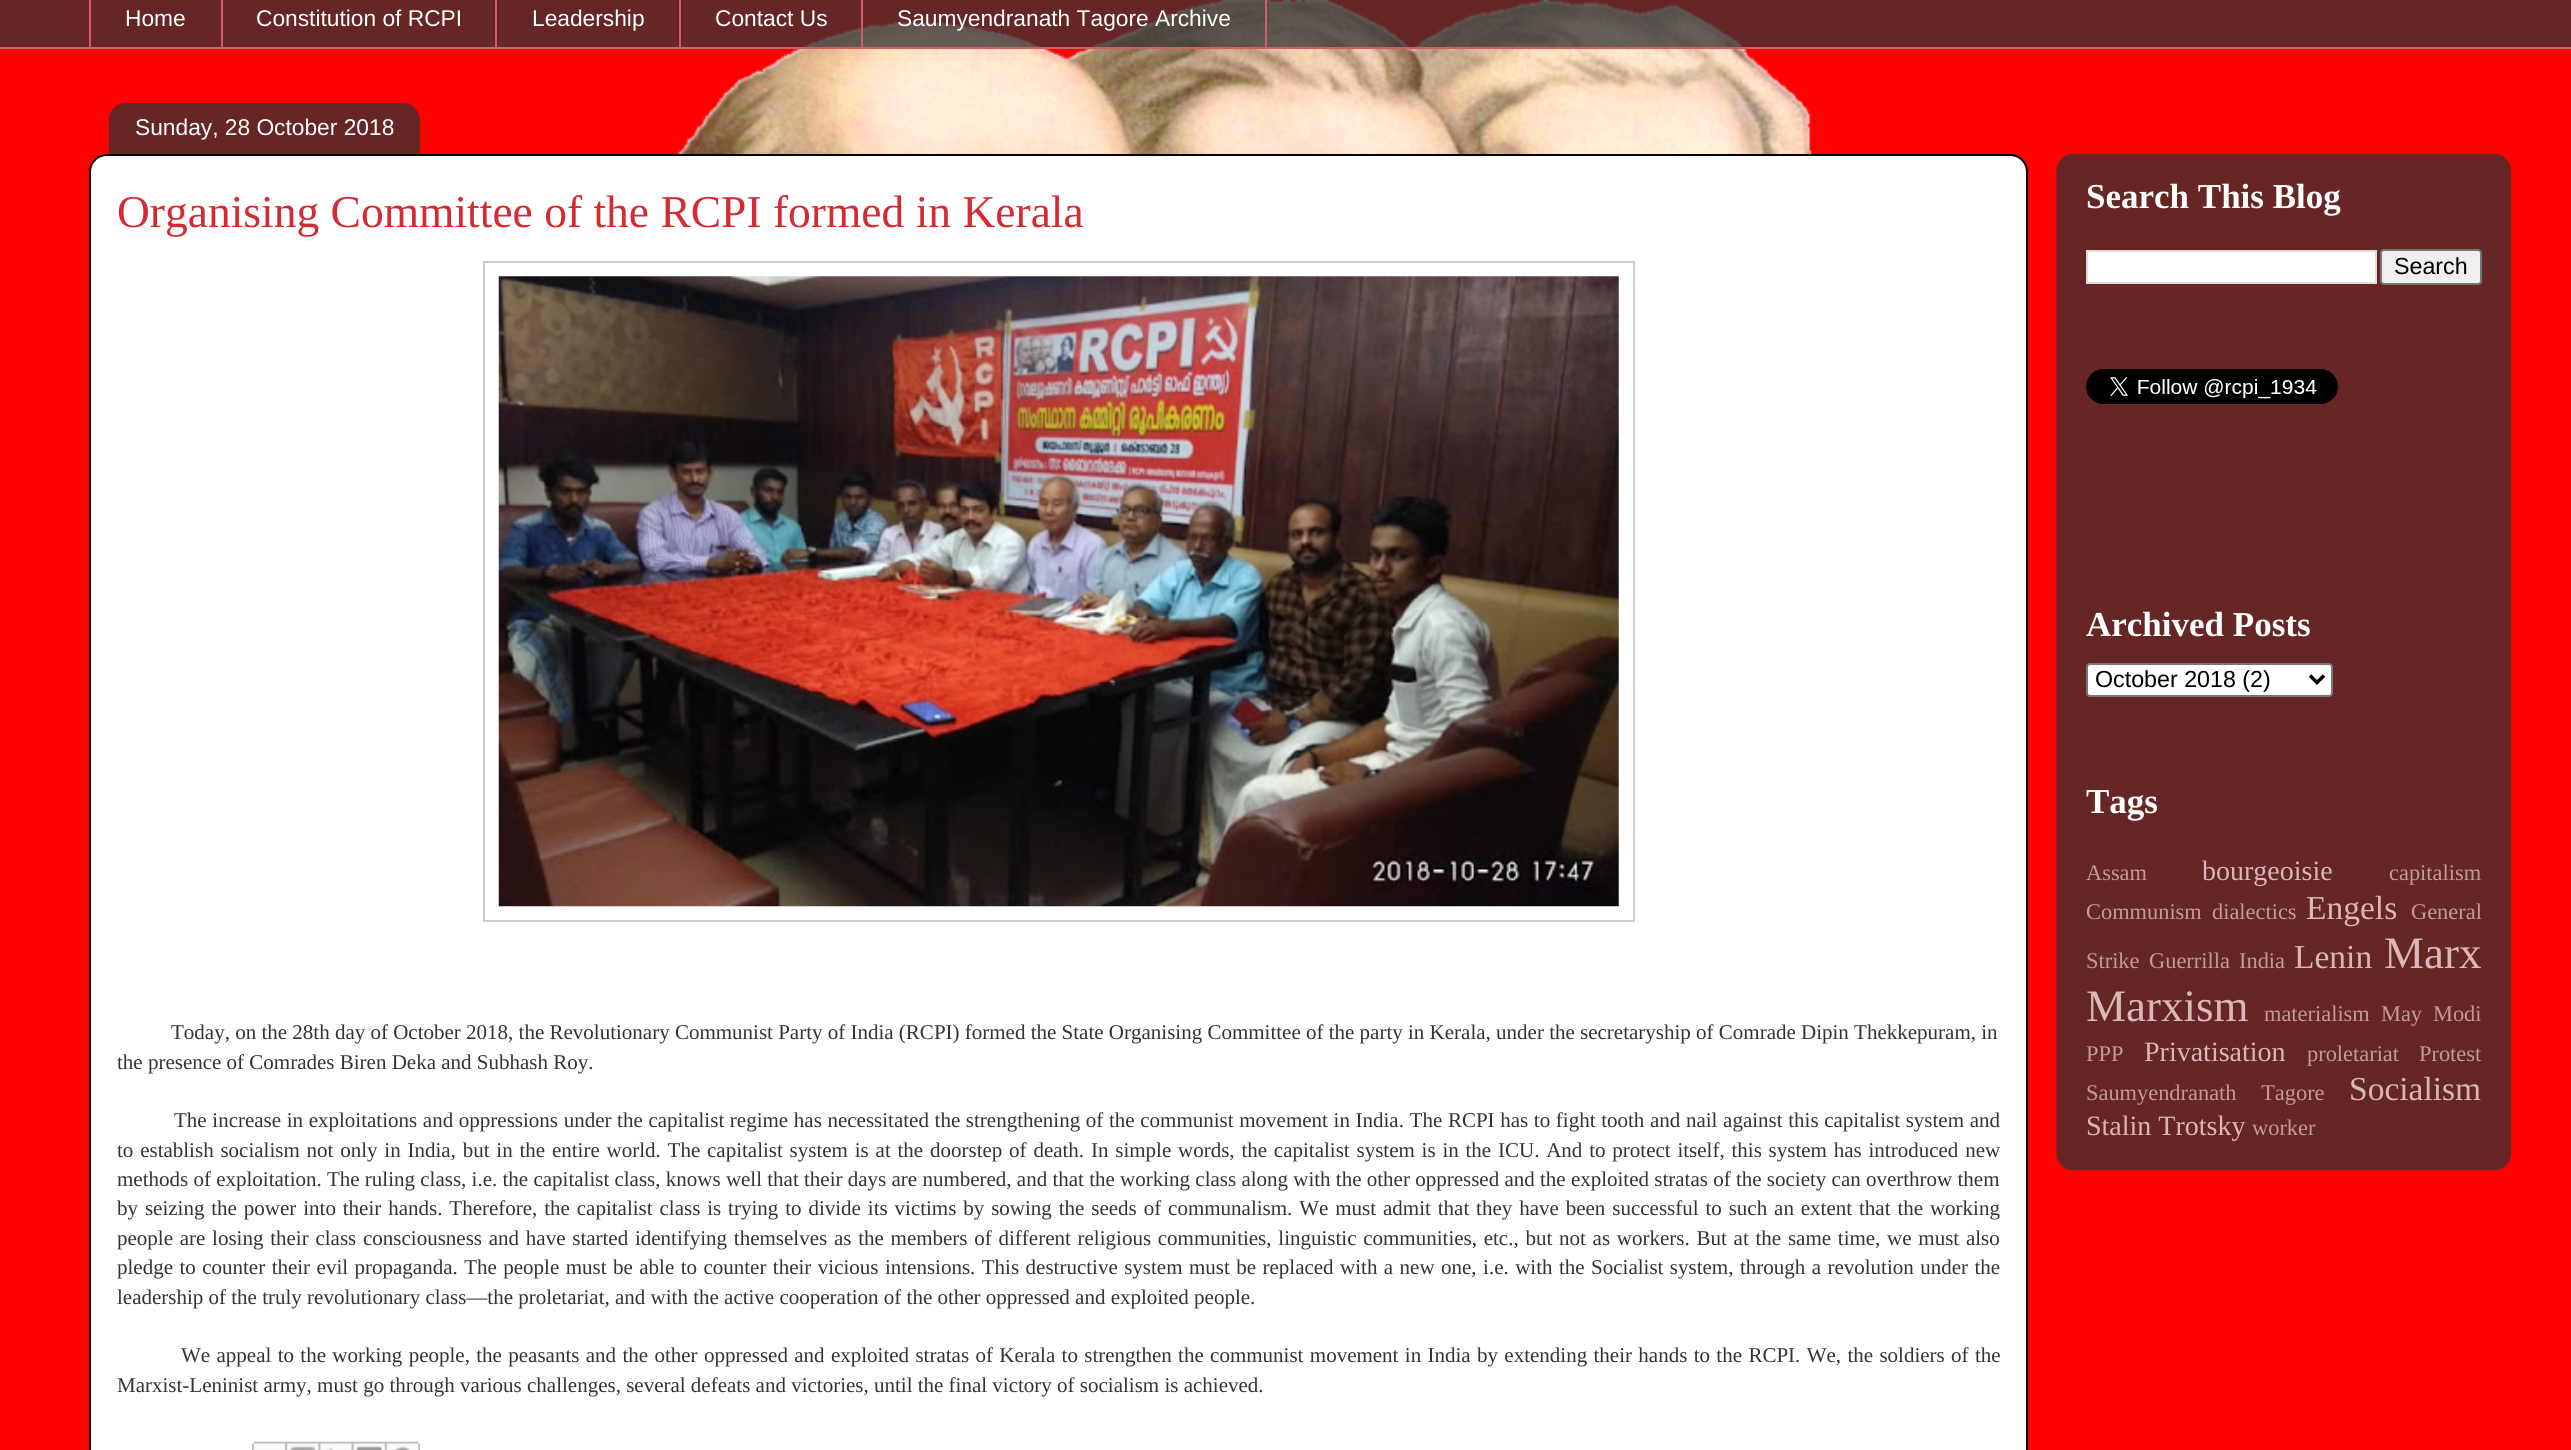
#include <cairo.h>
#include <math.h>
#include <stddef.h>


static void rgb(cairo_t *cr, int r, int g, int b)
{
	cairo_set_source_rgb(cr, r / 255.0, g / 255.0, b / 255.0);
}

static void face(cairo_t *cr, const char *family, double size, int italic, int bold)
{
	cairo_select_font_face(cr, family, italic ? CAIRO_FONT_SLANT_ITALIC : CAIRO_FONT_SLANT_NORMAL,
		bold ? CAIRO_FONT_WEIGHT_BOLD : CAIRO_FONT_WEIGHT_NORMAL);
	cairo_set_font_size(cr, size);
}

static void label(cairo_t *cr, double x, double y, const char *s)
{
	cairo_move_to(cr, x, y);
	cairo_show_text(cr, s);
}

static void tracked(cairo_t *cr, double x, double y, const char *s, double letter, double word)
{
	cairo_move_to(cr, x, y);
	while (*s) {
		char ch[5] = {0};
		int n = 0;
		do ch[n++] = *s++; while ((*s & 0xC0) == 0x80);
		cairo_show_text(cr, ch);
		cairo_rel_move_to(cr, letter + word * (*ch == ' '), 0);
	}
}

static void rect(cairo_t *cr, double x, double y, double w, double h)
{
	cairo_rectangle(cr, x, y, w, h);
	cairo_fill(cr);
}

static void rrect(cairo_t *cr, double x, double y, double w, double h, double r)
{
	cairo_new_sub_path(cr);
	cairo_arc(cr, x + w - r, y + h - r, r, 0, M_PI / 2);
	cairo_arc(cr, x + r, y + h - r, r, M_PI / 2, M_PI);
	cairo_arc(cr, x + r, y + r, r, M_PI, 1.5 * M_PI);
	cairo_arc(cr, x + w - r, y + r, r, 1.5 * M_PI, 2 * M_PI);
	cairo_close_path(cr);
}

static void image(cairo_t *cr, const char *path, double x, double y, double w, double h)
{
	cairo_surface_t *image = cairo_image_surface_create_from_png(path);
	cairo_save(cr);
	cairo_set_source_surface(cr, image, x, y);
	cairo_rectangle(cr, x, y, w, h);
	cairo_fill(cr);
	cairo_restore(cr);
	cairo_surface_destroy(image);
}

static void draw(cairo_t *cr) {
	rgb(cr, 255, 0, 0);
	cairo_paint(cr);
	image(cr, "image0.png", 677, 0, 1135, 154);
	cairo_set_source_rgba(cr, 0.2, 0.2, 0.2, 0.75);
	rect(cr, 0, 0, 2571, 47);
	rgb(cr, 206, 95, 106);
	rect(cr, 89, 0, 2, 49);
	face(cr, "Liberation Sans", 22.75, 0, 0);
	rgb(cr, 255, 255, 255);
	label(cr, 125, 26, "Home");
	rgb(cr, 206, 95, 106);
	rect(cr, 221, 0, 2, 49);
	rgb(cr, 255, 255, 255);
	label(cr, 256, 26, "Constitution of RCPI");
	rgb(cr, 206, 95, 106);
	rect(cr, 495, 0, 2, 49);
	rgb(cr, 255, 255, 255);
	label(cr, 532, 26, "Leadership");
	rgb(cr, 206, 95, 106);
	rect(cr, 679, 0, 2, 49);
	rgb(cr, 255, 255, 255);
	label(cr, 715, 26, "Contact Us");
	cairo_rectangle(cr, 862, -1, 404, 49);
	rgb(cr, 206, 95, 106);
	cairo_stroke(cr);
	rgb(cr, 255, 255, 255);
	label(cr, 897, 26, "Saumyendranath Tagore Archive");
	rgb(cr, 206, 95, 106);
	rect(cr, 0, 47, 2571, 2);
	rgb(cr, 255, 255, 255);
	cairo_new_path(cr);
	cairo_move_to(cr, 107, 155);
	cairo_line_to(cr, 2010, 155);
	cairo_curve_to(cr, 2019.5, 155, 2027, 162.5, 2027, 172);
	cairo_line_to(cr, 2027, 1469);
	cairo_line_to(cr, 90, 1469);
	cairo_line_to(cr, 90, 172);
	cairo_curve_to(cr, 90, 162.5, 97.5, 155, 107, 155);
	cairo_close_path(cr);
	cairo_fill_preserve(cr);
	rgb(cr, 0, 0, 0);
	cairo_stroke(cr);
	image(cr, "image1.png", 108, 103, 312, 51);
	rgb(cr, 255, 255, 255);
	label(cr, 135, 135, "Sunday, 28 October 2018");
	face(cr, "Liberation Serif", 45.5, 0, 0);
	rgb(cr, 213, 42, 51);
	label(cr, 117, 227, "Organising Committee of the RCPI formed in Kerala");
	cairo_rectangle(cr, 484, 262, 1150, 659);
	rgb(cr, 204, 204, 204);
	cairo_stroke(cr);
	image(cr, "image2.png", 498, 276, 1121, 631);
	face(cr, "Liberation Serif", 21, 0, 0);
	rgb(cr, 51, 51, 51);
	label(cr, 171, 1039, "Today, on the 28th day of October 2018, the Revolutionary Communist Party of India (RCPI) formed the State Organising Committee of the party in Kerala, under the secretaryship of Comrade Dipin Thekkepuram, in");
	label(cr, 117, 1069, "the presence of Comrades Biren Deka and Subhash Roy.");
	tracked(cr, 174, 1127, "The increase in exploitations and oppressions under the capitalist regime has necessitated the strengthening of the communist movement in India. The RCPI has to fight tooth and nail against this capitalist system and", 0, 0.4);
	tracked(cr, 117, 1157, "to establish socialism not only in India, but in the entire world. The capitalist system is at the doorstep of death. In simple words, the capitalist system is in the ICU. And to protect itself, this system has introduced new", 0, 1.55);
	label(cr, 117, 1186, "methods of exploitation. The ruling class, i.e. the capitalist class, knows well that their days are numbered, and that the working class along with the other oppressed and the exploited stratas of the society can overthrow them");
	tracked(cr, 117, 1215, "by seizing the power into their hands. Therefore, the capitalist class is trying to divide its victims by sowing the seeds of communalism. We must admit that they have been successful to such an extent that the working", 0, 1.65);
	tracked(cr, 117, 1245, "people are losing their class consciousness and have started identifying themselves as the members of different religious communities, linguistic communities, etc., but not as workers. But at the same time, we must also", 0, 1.5);
	tracked(cr, 117, 1274, "pledge to counter their evil propaganda. The people must be able to counter their vicious intensions. This destructive system must be replaced with a new one, i.e. with the Socialist system, through a revolution under the", 0, 1.2);
	label(cr, 117, 1304, "leadership of the truly revolutionary class—the proletariat, and with the active cooperation of the other oppressed and exploited people.");
	tracked(cr, 181, 1362, "We appeal to the working people, the peasants and the other oppressed and exploited stratas of Kerala to strengthen the communist movement in India by extending their hands to the RCPI. We, the soldiers of the", 0, 1.1);
	label(cr, 117, 1392, "Marxist-Leninist army, must go through various challenges, several defeats and victories, until the final victory of socialism is achieved.");
	image(cr, "image3.png", 252, 1441, 35, 9);
	image(cr, "image4.png", 285, 1441, 36, 9);
	image(cr, "image5.png", 318, 1441, 36, 9);
	image(cr, "image6.png", 351, 1441, 36, 9);
	image(cr, "image7.png", 385, 1441, 35, 9);
	image(cr, "image8.png", 2056, 153, 456, 1018);
	face(cr, "Liberation Serif", 35, 0, 1);
	rgb(cr, 255, 255, 255);
	label(cr, 2086, 208, "Search This Blog");
	cairo_rectangle(cr, 2087, 251, 289, 32);
	cairo_fill_preserve(cr);
	rgb(cr, 221, 221, 221);
	cairo_stroke(cr);
	rgb(cr, 239, 239, 239);
	rrect(cr, 2381, 250, 100, 34, 3);
	cairo_fill_preserve(cr);
	rgb(cr, 118, 118, 118);
	cairo_stroke(cr);
	face(cr, "Liberation Sans", 23.25, 0, 0);
	rgb(cr, 0, 0, 0);
	label(cr, 2394, 274, "Search");
	image(cr, "image9.png", 2086, 369, 252, 35);
	face(cr, "Liberation Serif", 35, 0, 1);
	rgb(cr, 255, 255, 255);
	label(cr, 2086, 636, "Archived Posts");
	rrect(cr, 2087, 664, 245, 32, 3);
	cairo_fill_preserve(cr);
	rgb(cr, 118, 118, 118);
	cairo_stroke(cr);
	cairo_new_path(cr);
	cairo_move_to(cr, 2310, 675.5);
	cairo_line_to(cr, 2317, 682.5);
	cairo_line_to(cr, 2324, 675.5);
	rgb(cr, 0, 0, 0);
	cairo_set_line_width(cr, 3.5);
	cairo_stroke(cr);
	face(cr, "Liberation Sans", 23.25, 0, 0);
	label(cr, 2095, 687, "October 2018 (2)");
	face(cr, "Liberation Serif", 35, 0, 1);
	rgb(cr, 255, 255, 255);
	label(cr, 2086, 813, "Tags");
	face(cr, "Liberation Serif", 22.4, 0, 0);
	rgb(cr, 195, 154, 156);
	label(cr, 2086, 880, "Assam");
	face(cr, "Liberation Serif", 28, 0, 0);
	rgb(cr, 218, 183, 186);
	label(cr, 2202, 880, "bourgeoisie");
	face(cr, "Liberation Serif", 22.4, 0, 0);
	rgb(cr, 195, 154, 156);
	label(cr, 2389, 880, "capitalism");
	label(cr, 2086, 919, "Communism");
	label(cr, 2212, 919, "dialectics");
	face(cr, "Liberation Serif", 33.5, 0, 0);
	rgb(cr, 218, 183, 186);
	label(cr, 2306, 919, "Engels");
	face(cr, "Liberation Serif", 22.4, 0, 0);
	rgb(cr, 195, 154, 156);
	label(cr, 2411, 919, "General");
	label(cr, 2086, 968, "Strike");
	label(cr, 2149, 968, "Guerrilla");
	label(cr, 2239, 968, "India");
	face(cr, "Liberation Serif", 33.5, 0, 0);
	rgb(cr, 218, 183, 186);
	label(cr, 2294, 968, "Lenin");
	face(cr, "Liberation Serif", 45, 0, 0);
	label(cr, 2384, 968, "Marx");
	label(cr, 2086, 1021, "Marxism");
	face(cr, "Liberation Serif", 22.4, 0, 0);
	rgb(cr, 195, 154, 156);
	label(cr, 2264, 1021, "materialism");
	label(cr, 2381, 1021, "May");
	label(cr, 2433, 1021, "Modi");
	label(cr, 2086, 1061, "PPP");
	face(cr, "Liberation Serif", 28, 0, 0);
	rgb(cr, 218, 183, 186);
	label(cr, 2144, 1061, "Privatisation");
	face(cr, "Liberation Serif", 22.4, 0, 0);
	rgb(cr, 195, 154, 156);
	label(cr, 2307, 1061, "proletariat");
	label(cr, 2419, 1061, "Protest");
	tracked(cr, 2086, 1100, "Saumyendranath Tagore", 0, 19);
	face(cr, "Liberation Serif", 33.5, 0, 0);
	rgb(cr, 218, 183, 186);
	label(cr, 2349, 1100, "Socialism");
	face(cr, "Liberation Serif", 28, 0, 0);
	label(cr, 2086, 1135, "Stalin Trotsky");
	face(cr, "Liberation Serif", 22.4, 0, 0);
	rgb(cr, 195, 154, 156);
	label(cr, 2252, 1135, "worker");
}

int main(void) {
	cairo_surface_t *surface = cairo_image_surface_create(CAIRO_FORMAT_RGB24, 2571, 1450);
	cairo_t *cr = cairo_create(surface);
	cairo_font_options_t *options = cairo_font_options_create();
	cairo_font_options_set_hint_metrics(options, CAIRO_HINT_METRICS_OFF);
	cairo_font_options_set_hint_style(options, CAIRO_HINT_STYLE_NONE);
	cairo_set_font_options(cr, options);
	cairo_set_miter_limit(cr, 4);
	draw(cr);
	cairo_surface_write_to_png(surface, "render.png");
	cairo_font_options_destroy(options);
	cairo_destroy(cr);
	cairo_surface_destroy(surface);
	return 0;
}
